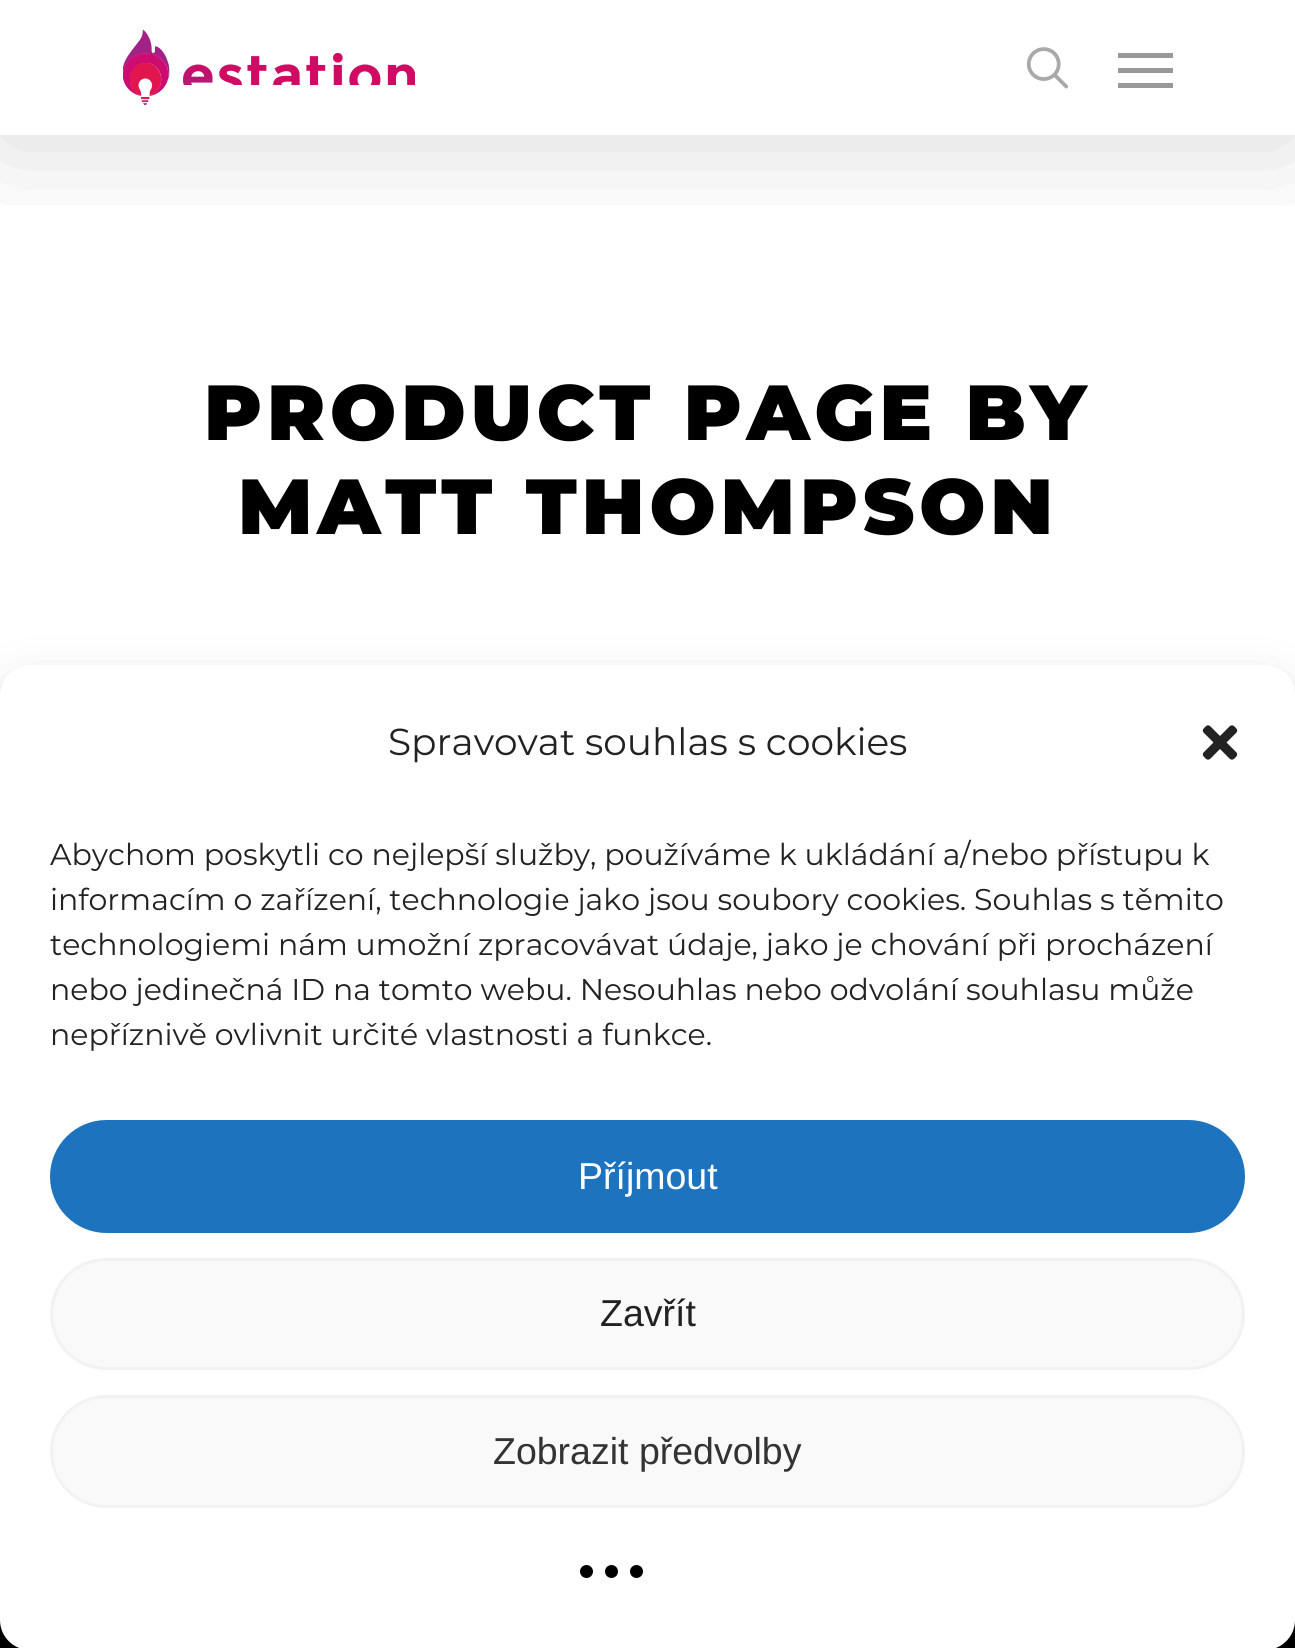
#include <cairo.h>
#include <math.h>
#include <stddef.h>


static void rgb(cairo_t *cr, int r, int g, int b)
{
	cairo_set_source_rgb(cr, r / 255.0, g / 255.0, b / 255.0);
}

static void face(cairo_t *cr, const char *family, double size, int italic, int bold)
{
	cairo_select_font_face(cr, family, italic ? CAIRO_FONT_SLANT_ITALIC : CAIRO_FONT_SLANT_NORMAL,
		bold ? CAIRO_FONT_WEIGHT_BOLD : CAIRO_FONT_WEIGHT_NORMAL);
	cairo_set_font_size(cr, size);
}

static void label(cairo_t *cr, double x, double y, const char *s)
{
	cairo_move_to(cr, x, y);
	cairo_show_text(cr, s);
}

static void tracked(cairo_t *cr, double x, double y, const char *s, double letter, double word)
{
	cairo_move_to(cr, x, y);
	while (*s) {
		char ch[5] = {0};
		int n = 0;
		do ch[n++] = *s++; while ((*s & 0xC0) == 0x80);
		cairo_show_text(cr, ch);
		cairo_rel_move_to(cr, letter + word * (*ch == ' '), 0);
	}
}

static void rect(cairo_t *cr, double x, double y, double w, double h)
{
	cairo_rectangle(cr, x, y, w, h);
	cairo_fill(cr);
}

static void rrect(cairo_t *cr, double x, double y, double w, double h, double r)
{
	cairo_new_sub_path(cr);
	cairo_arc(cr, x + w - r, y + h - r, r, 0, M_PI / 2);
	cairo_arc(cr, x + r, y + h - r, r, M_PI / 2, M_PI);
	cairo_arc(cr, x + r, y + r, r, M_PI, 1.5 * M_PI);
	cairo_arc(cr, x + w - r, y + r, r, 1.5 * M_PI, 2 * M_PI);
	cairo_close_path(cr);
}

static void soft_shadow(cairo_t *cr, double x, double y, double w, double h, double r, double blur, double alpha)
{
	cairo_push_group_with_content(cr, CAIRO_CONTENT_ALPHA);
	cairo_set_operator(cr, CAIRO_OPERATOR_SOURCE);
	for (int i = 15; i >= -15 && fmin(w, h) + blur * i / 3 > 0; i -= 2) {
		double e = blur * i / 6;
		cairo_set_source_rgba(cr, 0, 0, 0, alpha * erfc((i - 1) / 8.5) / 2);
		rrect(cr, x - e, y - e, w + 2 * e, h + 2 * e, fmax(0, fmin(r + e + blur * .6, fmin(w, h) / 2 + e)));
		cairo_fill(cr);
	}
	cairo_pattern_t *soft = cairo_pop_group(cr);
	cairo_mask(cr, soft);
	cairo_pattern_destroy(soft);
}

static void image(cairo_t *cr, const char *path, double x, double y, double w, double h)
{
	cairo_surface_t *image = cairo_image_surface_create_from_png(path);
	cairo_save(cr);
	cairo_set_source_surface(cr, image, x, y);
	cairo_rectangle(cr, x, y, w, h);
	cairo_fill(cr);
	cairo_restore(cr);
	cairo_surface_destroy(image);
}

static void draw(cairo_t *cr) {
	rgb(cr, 255, 255, 255);
	cairo_paint(cr);
	cairo_save(cr);
	cairo_rectangle(cr, 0, 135, 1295, 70);
	cairo_clip(cr);
	rgb(cr, 0, 0, 0);
	soft_shadow(cr, 0, 8, 1295, 135, 0, 56, 0.15);
	cairo_restore(cr);
	image(cr, "image0.png", 123, 30, 292, 75);
	image(cr, "image1.png", 1026, 47, 43, 42);
	rgb(cr, 153, 153, 153);
	rect(cr, 1118, 53, 55, 5);
	rect(cr, 1118, 83, 55, 5);
	rect(cr, 1118, 68, 55, 5);
	face(cr, "Montserrat Black", 78, 0, 0);
	rgb(cr, 0, 0, 0);
	tracked(cr, 204, 440, "PRODUCT PAGE BY", 5, 0);
	tracked(cr, 238, 534, "MATT THOMPSON", 5, 0);
	rect(cr, 0, 1620, 1295, 28);
	rgb(cr, 0, 0, 0);
	soft_shadow(cr, 0, 680, 1295, 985, 30, 7.5, 0.23);
	soft_shadow(cr, 0, 690, 1295, 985, 30, 25, 0.19);
	rgb(cr, 255, 255, 255);
	rrect(cr, 0, 665, 1295, 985, 30);
	cairo_fill(cr);
	face(cr, "Montserrat", 37.5, 0, 0);
	rgb(cr, 34, 34, 34);
	label(cr, 388, 755, "Spravovat souhlas s cookies");
	image(cr, "image2.png", 1202, 725, 36, 35);
	face(cr, "Montserrat", 30, 0, 0);
	label(cr, 50, 865, "Abychom poskytli co nejlepší služby, používáme k ukládání a/nebo přístupu k");
	label(cr, 50, 910, "informacím o zařízení, technologie jako jsou soubory cookies. Souhlas s těmito");
	label(cr, 50, 955, "technologiemi nám umožní zpracovávat údaje, jako je chování při procházení");
	label(cr, 50, 1000, "nebo jedinečná ID na tomto webu. Nesouhlas nebo odvolání souhlasu může");
	label(cr, 50, 1045, "nepříznivě ovlivnit určité vlastnosti a funkce.");
	rgb(cr, 30, 115, 190);
	rrect(cr, 51.5, 1121.5, 1192, 110, 55);
	cairo_fill_preserve(cr);
	cairo_set_line_width(cr, 3);
	cairo_stroke(cr);
	face(cr, "Liberation Sans", 37.5, 0, 0);
	rgb(cr, 255, 255, 255);
	label(cr, 578, 1189, "Příjmout");
	rgb(cr, 249, 249, 249);
	rrect(cr, 51.5, 1259.5, 1192, 109, 54.5);
	cairo_fill_preserve(cr);
	rgb(cr, 242, 242, 242);
	cairo_stroke(cr);
	rgb(cr, 34, 34, 34);
	label(cr, 600, 1326, "Zavřít");
	rgb(cr, 249, 249, 249);
	rrect(cr, 51.5, 1396.5, 1192, 110, 55);
	cairo_fill_preserve(cr);
	rgb(cr, 242, 242, 242);
	cairo_stroke(cr);
	rgb(cr, 51, 51, 51);
	label(cr, 493, 1464, "Zobrazit předvolby");
	rgb(cr, 0, 0, 0);
	cairo_new_path(cr);
	cairo_arc(cr, 586.5, 1571.5, 6.5, 0, 2 * M_PI);
	cairo_fill(cr);
	cairo_arc(cr, 611.5, 1571.5, 6.5, 0, 2 * M_PI);
	cairo_fill(cr);
	cairo_arc(cr, 636.5, 1571.5, 6.5, 0, 2 * M_PI);
	cairo_fill(cr);
}

int main(void) {
	cairo_surface_t *surface = cairo_image_surface_create(CAIRO_FORMAT_RGB24, 1295, 1648);
	cairo_t *cr = cairo_create(surface);
	cairo_font_options_t *options = cairo_font_options_create();
	cairo_font_options_set_hint_metrics(options, CAIRO_HINT_METRICS_OFF);
	cairo_font_options_set_hint_style(options, CAIRO_HINT_STYLE_NONE);
	cairo_set_font_options(cr, options);
	cairo_set_miter_limit(cr, 4);
	draw(cr);
	cairo_surface_write_to_png(surface, "render.png");
	cairo_font_options_destroy(options);
	cairo_destroy(cr);
	cairo_surface_destroy(surface);
	return 0;
}
